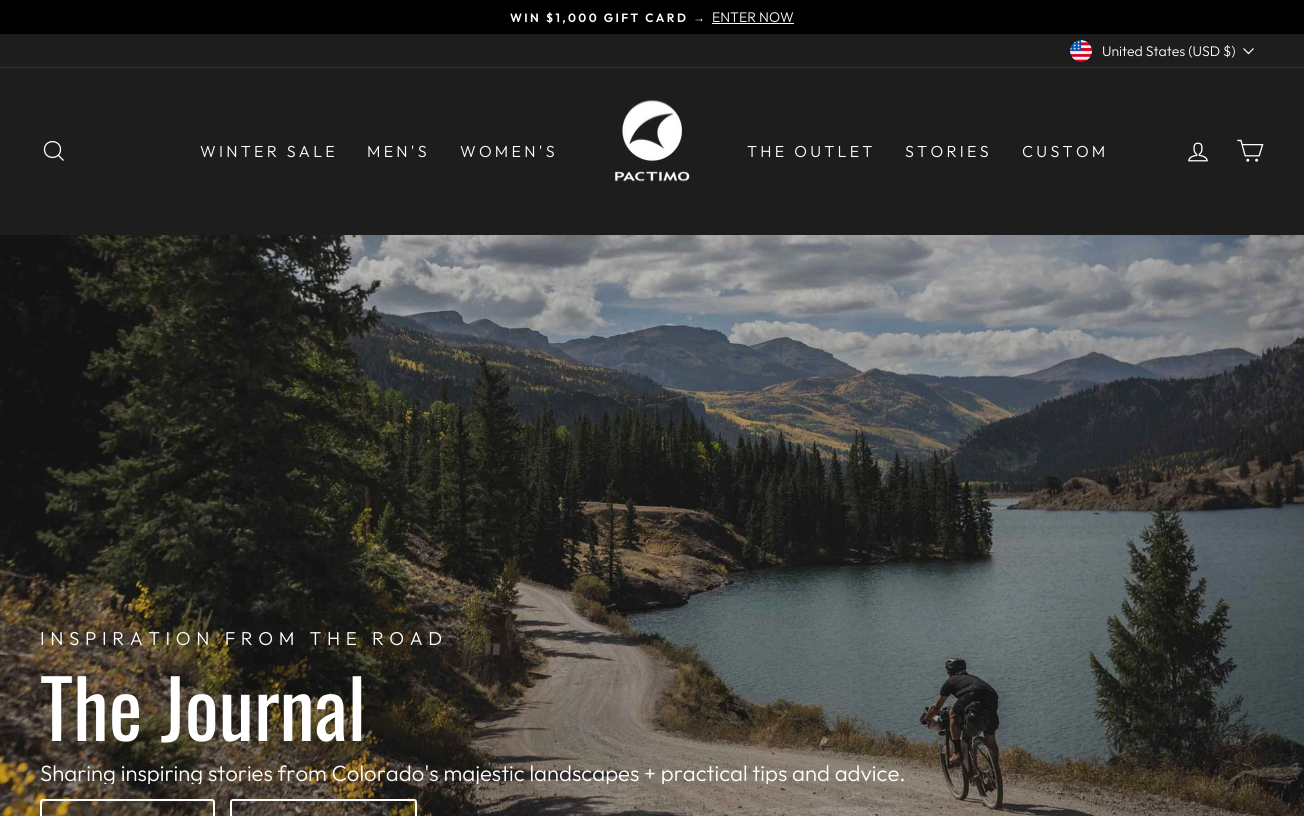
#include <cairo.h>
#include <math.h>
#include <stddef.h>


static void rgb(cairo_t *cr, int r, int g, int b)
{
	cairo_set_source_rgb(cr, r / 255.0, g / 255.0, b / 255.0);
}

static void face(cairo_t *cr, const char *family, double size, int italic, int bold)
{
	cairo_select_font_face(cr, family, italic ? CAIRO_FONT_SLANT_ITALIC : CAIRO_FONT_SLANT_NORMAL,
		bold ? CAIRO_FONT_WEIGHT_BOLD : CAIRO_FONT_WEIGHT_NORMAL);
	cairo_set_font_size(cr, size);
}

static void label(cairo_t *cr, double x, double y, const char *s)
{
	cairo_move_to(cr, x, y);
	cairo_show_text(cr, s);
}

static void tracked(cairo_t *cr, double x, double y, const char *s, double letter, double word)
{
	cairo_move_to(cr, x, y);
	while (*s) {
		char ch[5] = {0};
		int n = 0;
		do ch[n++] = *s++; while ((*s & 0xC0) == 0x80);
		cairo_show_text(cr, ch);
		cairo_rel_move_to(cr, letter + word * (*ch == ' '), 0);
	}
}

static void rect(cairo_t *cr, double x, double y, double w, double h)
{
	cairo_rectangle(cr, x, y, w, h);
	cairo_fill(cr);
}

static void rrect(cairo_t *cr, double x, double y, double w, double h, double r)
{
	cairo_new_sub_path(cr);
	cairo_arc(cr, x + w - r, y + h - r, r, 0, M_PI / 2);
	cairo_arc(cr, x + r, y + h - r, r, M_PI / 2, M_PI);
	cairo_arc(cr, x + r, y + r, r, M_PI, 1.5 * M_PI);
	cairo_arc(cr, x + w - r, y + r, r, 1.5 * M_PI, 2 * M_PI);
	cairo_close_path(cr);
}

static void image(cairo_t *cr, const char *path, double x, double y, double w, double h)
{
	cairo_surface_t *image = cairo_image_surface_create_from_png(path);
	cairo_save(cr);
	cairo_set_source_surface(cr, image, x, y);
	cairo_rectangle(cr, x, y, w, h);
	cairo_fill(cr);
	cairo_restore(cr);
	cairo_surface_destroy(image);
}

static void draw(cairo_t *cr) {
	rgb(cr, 29, 29, 29);
	cairo_paint(cr);
	rgb(cr, 0, 0, 0);
	rect(cr, 0, 0, 1304, 34);
	face(cr, "Outfit SemiBold", 12, 0, 0);
	rgb(cr, 255, 255, 255);
	tracked(cr, 510, 22, "WIN $1,000 GIFT CARD", 2.4, 0);
	face(cr, "Liberation Sans", 12, 0, 1);
	tracked(cr, 693, 22, "→", 2.4, 0);
	face(cr, "Outfit Light", 14, 0, 0);
	label(cr, 712, 22, "ENTER NOW");
	rect(cr, 712, 23, 82, 1);
	image(cr, "image0.png", 1070, 40, 22, 22);
	label(cr, 1102, 56, "United States (USD $)");
	cairo_new_path(cr);
	cairo_move_to(cr, 1243.5, 48.5);
	cairo_line_to(cr, 1248.5, 53.5);
	cairo_line_to(cr, 1253.5, 48.5);
	cairo_set_line_width(cr, 1.2);
	cairo_stroke(cr);
	rgb(cr, 52, 52, 52);
	rect(cr, 0, 67, 1304, 1);
	cairo_new_path(cr);
	cairo_move_to(cr, 60.5, 149.5);
	cairo_curve_to(cr, 60.5, 160, 44.5, 160, 44.5, 149.5);
	cairo_curve_to(cr, 44.5, 139, 60.5, 139, 60.5, 149.5);
	cairo_close_path(cr);
	cairo_move_to(cr, 63.5, 160.5);
	cairo_line_to(cr, 58.5, 155.5);
	rgb(cr, 255, 255, 255);
	cairo_set_line_width(cr, 1.3);
	cairo_stroke(cr);
	face(cr, "Outfit Light", 16, 0, 0);
	tracked(cr, 200, 157, "WINTER SALE", 3.25, 0);
	tracked(cr, 367, 157, "MEN'S", 3.25, 0);
	tracked(cr, 460, 157, "WOMEN'S", 3.25, 0);
	image(cr, "image1.png", 615, 100, 75, 82);
	tracked(cr, 747, 157, "THE OUTLET", 3.25, 0);
	tracked(cr, 905, 157, "STORIES", 3.25, 0);
	tracked(cr, 1022, 157, "CUSTOM", 3.25, 0);
	image(cr, "image2.png", 1188, 142, 20, 20);
	image(cr, "image3.png", 1237, 139, 27, 23);
	image(cr, "image4.png", 0, 235, 1304, 581);
	face(cr, "Outfit Light", 18.7, 0, 0);
	tracked(cr, 40, 645, "INSPIRATION FROM THE ROAD", 5.6, 0);
	face(cr, "Oswald", 80, 0, 0);
	label(cr, 40, 741, "The Journal");
	cairo_save(cr);
	cairo_rectangle(cr, 40, 762, 865, 22);
	cairo_clip(cr);
	face(cr, "Outfit Light", 22.1, 0, 0);
	label(cr, 40, 781, "Sharing inspiring stories from Colorado's majestic landscapes + practical tips and advice.");
	cairo_restore(cr);
	rrect(cr, 41, 800, 173, 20, 2);
	cairo_set_line_width(cr, 2);
	cairo_stroke(cr);
	rrect(cr, 231, 800, 185, 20, 2);
	cairo_stroke(cr);
}

int main(void) {
	cairo_surface_t *surface = cairo_image_surface_create(CAIRO_FORMAT_RGB24, 1304, 816);
	cairo_t *cr = cairo_create(surface);
	cairo_font_options_t *options = cairo_font_options_create();
	cairo_font_options_set_hint_metrics(options, CAIRO_HINT_METRICS_OFF);
	cairo_font_options_set_hint_style(options, CAIRO_HINT_STYLE_NONE);
	cairo_set_font_options(cr, options);
	cairo_set_miter_limit(cr, 4);
	draw(cr);
	cairo_surface_write_to_png(surface, "render.png");
	cairo_font_options_destroy(options);
	cairo_destroy(cr);
	cairo_surface_destroy(surface);
	return 0;
}
